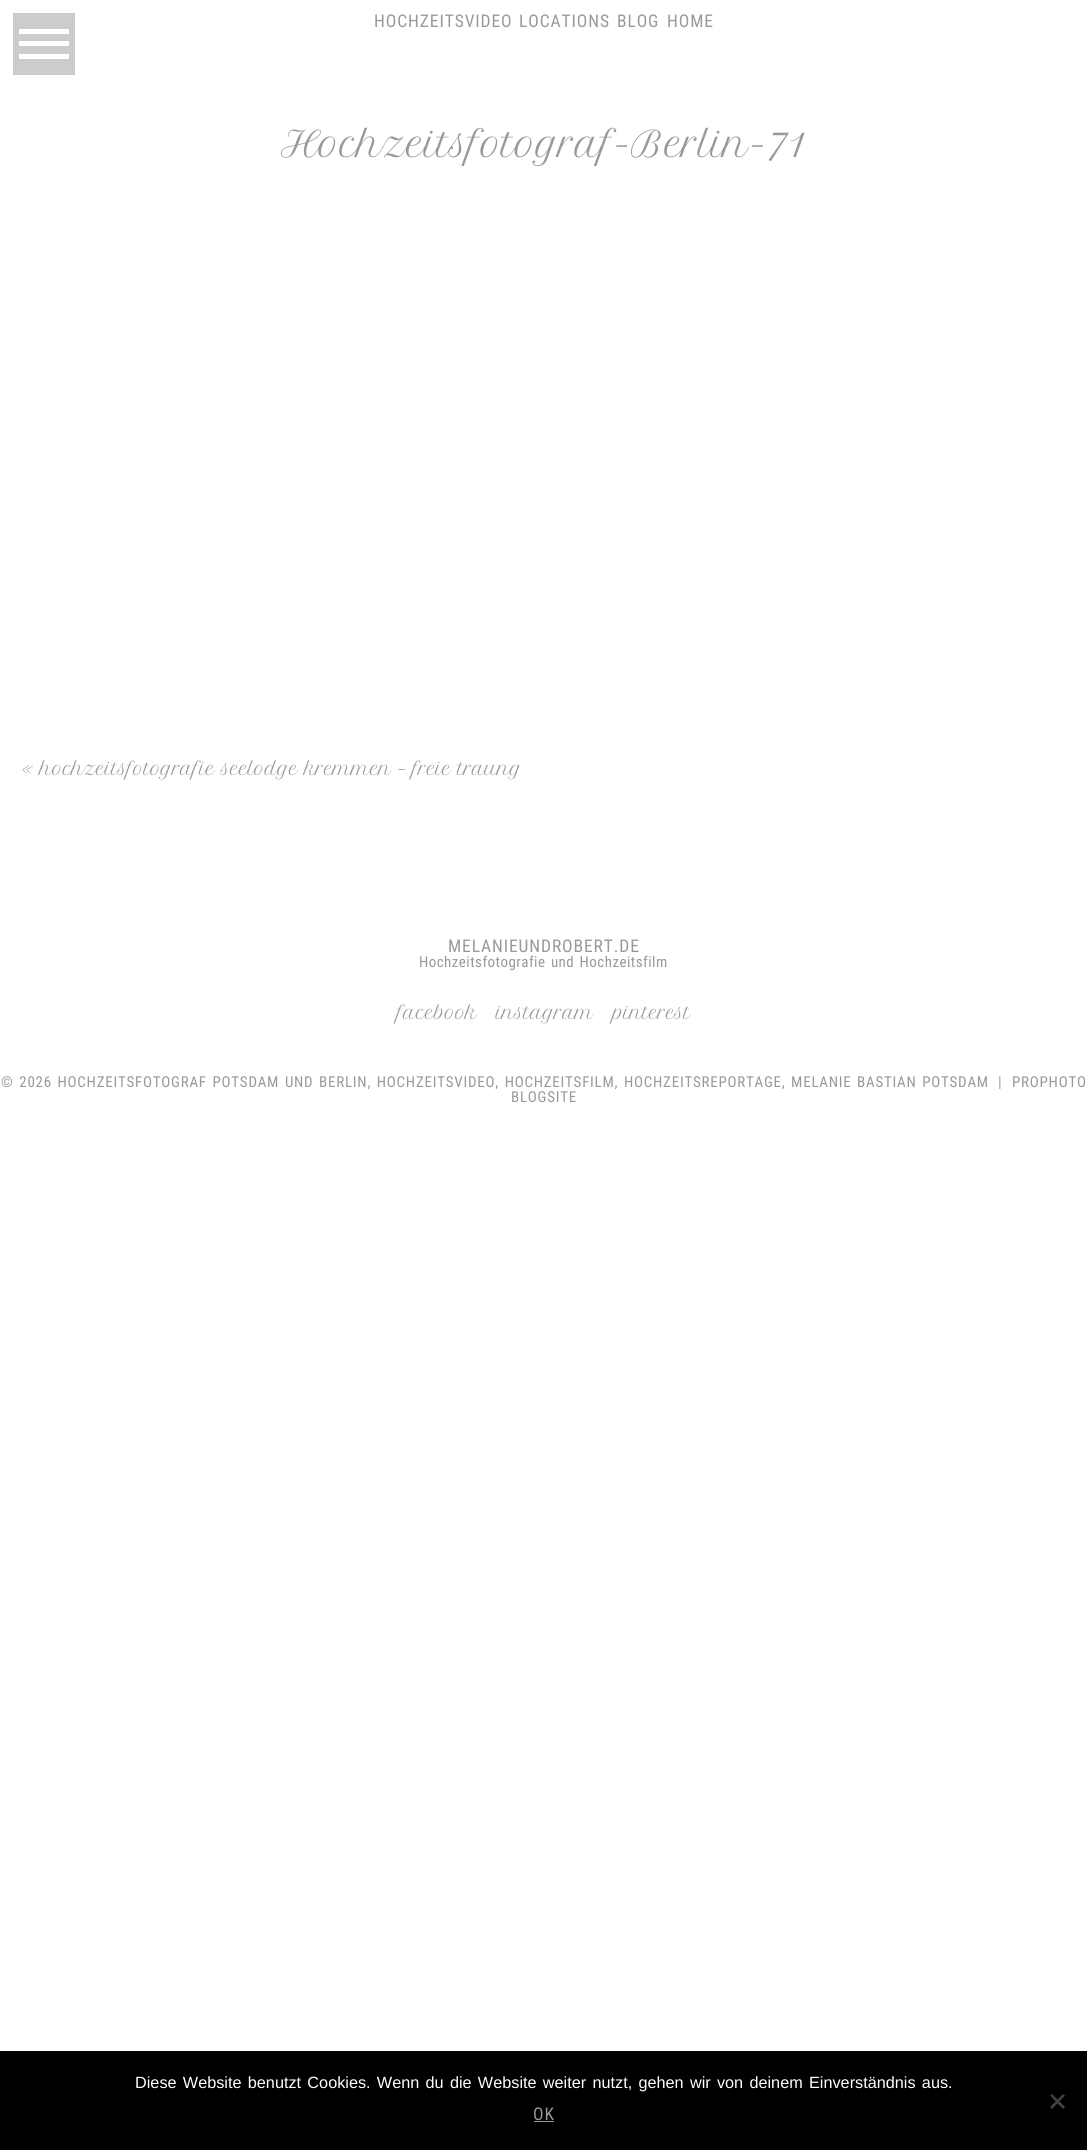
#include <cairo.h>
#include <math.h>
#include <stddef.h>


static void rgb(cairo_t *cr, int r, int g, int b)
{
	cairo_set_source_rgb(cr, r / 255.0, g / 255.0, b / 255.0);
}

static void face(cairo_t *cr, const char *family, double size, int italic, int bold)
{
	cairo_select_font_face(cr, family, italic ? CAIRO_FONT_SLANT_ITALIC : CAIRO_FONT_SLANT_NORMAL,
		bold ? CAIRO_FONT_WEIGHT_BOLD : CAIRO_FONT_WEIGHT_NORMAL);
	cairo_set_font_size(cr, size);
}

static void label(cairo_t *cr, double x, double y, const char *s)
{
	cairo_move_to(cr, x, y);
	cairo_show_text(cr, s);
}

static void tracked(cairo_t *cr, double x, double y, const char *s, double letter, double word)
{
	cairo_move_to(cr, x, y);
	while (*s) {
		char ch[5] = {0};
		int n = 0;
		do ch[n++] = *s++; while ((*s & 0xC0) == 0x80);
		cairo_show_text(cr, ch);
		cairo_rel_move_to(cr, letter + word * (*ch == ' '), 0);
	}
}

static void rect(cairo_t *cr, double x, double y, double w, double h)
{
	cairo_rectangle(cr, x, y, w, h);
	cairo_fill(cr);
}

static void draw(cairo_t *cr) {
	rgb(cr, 255, 255, 255);
	cairo_paint(cr);
	rgb(cr, 204, 204, 204);
	rect(cr, 13, 13, 62, 62);
	rgb(cr, 255, 255, 255);
	rect(cr, 19, 29, 50, 5);
	rect(cr, 19, 41, 50, 5);
	rect(cr, 19, 54, 50, 5);
	face(cr, "Roboto Condensed", 17.5, 0, 0);
	rgb(cr, 153, 153, 153);
	tracked(cr, 374, 27, "HOCHZEITSVIDEO", 0.9, 0);
	tracked(cr, 519, 27, "LOCATIONS", 0.9, 0);
	tracked(cr, 617, 27, "BLOG", 0.9, 0);
	tracked(cr, 667, 27, "HOME", 0.9, 0);
	face(cr, "Petit Formal Script", 35, 0, 0);
	label(cr, 281, 157, "Hochzeitsfotograf-Berlin-71");
	face(cr, "Petit Formal Script", 17.5, 0, 0);
	label(cr, 22, 775, "« hochzeitsfotografie seelodge kremmen – freie traung");
	face(cr, "Roboto Condensed", 17.5, 0, 0);
	tracked(cr, 448, 952, "MELANIEUNDROBERT.DE", 0.9, 0);
	face(cr, "Roboto Condensed", 15, 0, 0);
	tracked(cr, 419, 967, "Hochzeitsfotografie und Hochzeitsfilm", 0.45, 1.5);
	face(cr, "Petit Formal Script", 17.5, 0, 0);
	label(cr, 397, 1019, "facebook");
	label(cr, 496, 1019, "instagram");
	label(cr, 613, 1019, "pinterest");
	face(cr, "Roboto Condensed", 15, 0, 0);
	tracked(cr, 1, 1087, "© 2026 HOCHZEITSFOTOGRAF POTSDAM UND BERLIN, HOCHZEITSVIDEO, HOCHZEITSFILM, HOCHZEITSREPORTAGE, MELANIE BASTIAN POTSDAM", 0.75, 1.5);
	tracked(cr, 998, 1087, "|", 0.75, 0);
	tracked(cr, 1012, 1087, "PROPHOTO", 0.75, 0);
	tracked(cr, 511, 1102, "BLOGSITE", 0.75, 0);
	rgb(cr, 0, 0, 0);
	rect(cr, 0, 2051, 1087, 99);
	face(cr, "Liberation Sans", 16.25, 0, 0);
	rgb(cr, 255, 255, 255);
	tracked(cr, 135, 2088, "Diese Website benutzt Cookies. Wenn du die Website weiter nutzt, gehen wir von deinem Einverständnis aus.", 0, 1.75);
	rgb(cr, 64, 64, 64);
	cairo_new_path(cr);
	cairo_move_to(cr, 1063, 2094);
	cairo_line_to(cr, 1065, 2095.5);
	cairo_line_to(cr, 1052, 2109);
	cairo_line_to(cr, 1050, 2107);
	cairo_close_path(cr);
	cairo_fill(cr);
	cairo_new_path(cr);
	cairo_move_to(cr, 1050, 2095.5);
	cairo_line_to(cr, 1052, 2094);
	cairo_line_to(cr, 1065, 2107);
	cairo_line_to(cr, 1063, 2109);
	cairo_close_path(cr);
	cairo_fill(cr);
	face(cr, "Roboto Condensed", 17.5, 0, 0);
	rgb(cr, 153, 153, 153);
	tracked(cr, 533, 2120, "OK", 1, 0);
	rect(cr, 534, 2121, 20, 1);
}

int main(void) {
	cairo_surface_t *surface = cairo_image_surface_create(CAIRO_FORMAT_RGB24, 1087, 2150);
	cairo_t *cr = cairo_create(surface);
	cairo_font_options_t *options = cairo_font_options_create();
	cairo_font_options_set_hint_metrics(options, CAIRO_HINT_METRICS_OFF);
	cairo_font_options_set_hint_style(options, CAIRO_HINT_STYLE_NONE);
	cairo_set_font_options(cr, options);
	cairo_set_miter_limit(cr, 4);
	draw(cr);
	cairo_surface_write_to_png(surface, "render.png");
	cairo_font_options_destroy(options);
	cairo_destroy(cr);
	cairo_surface_destroy(surface);
	return 0;
}
